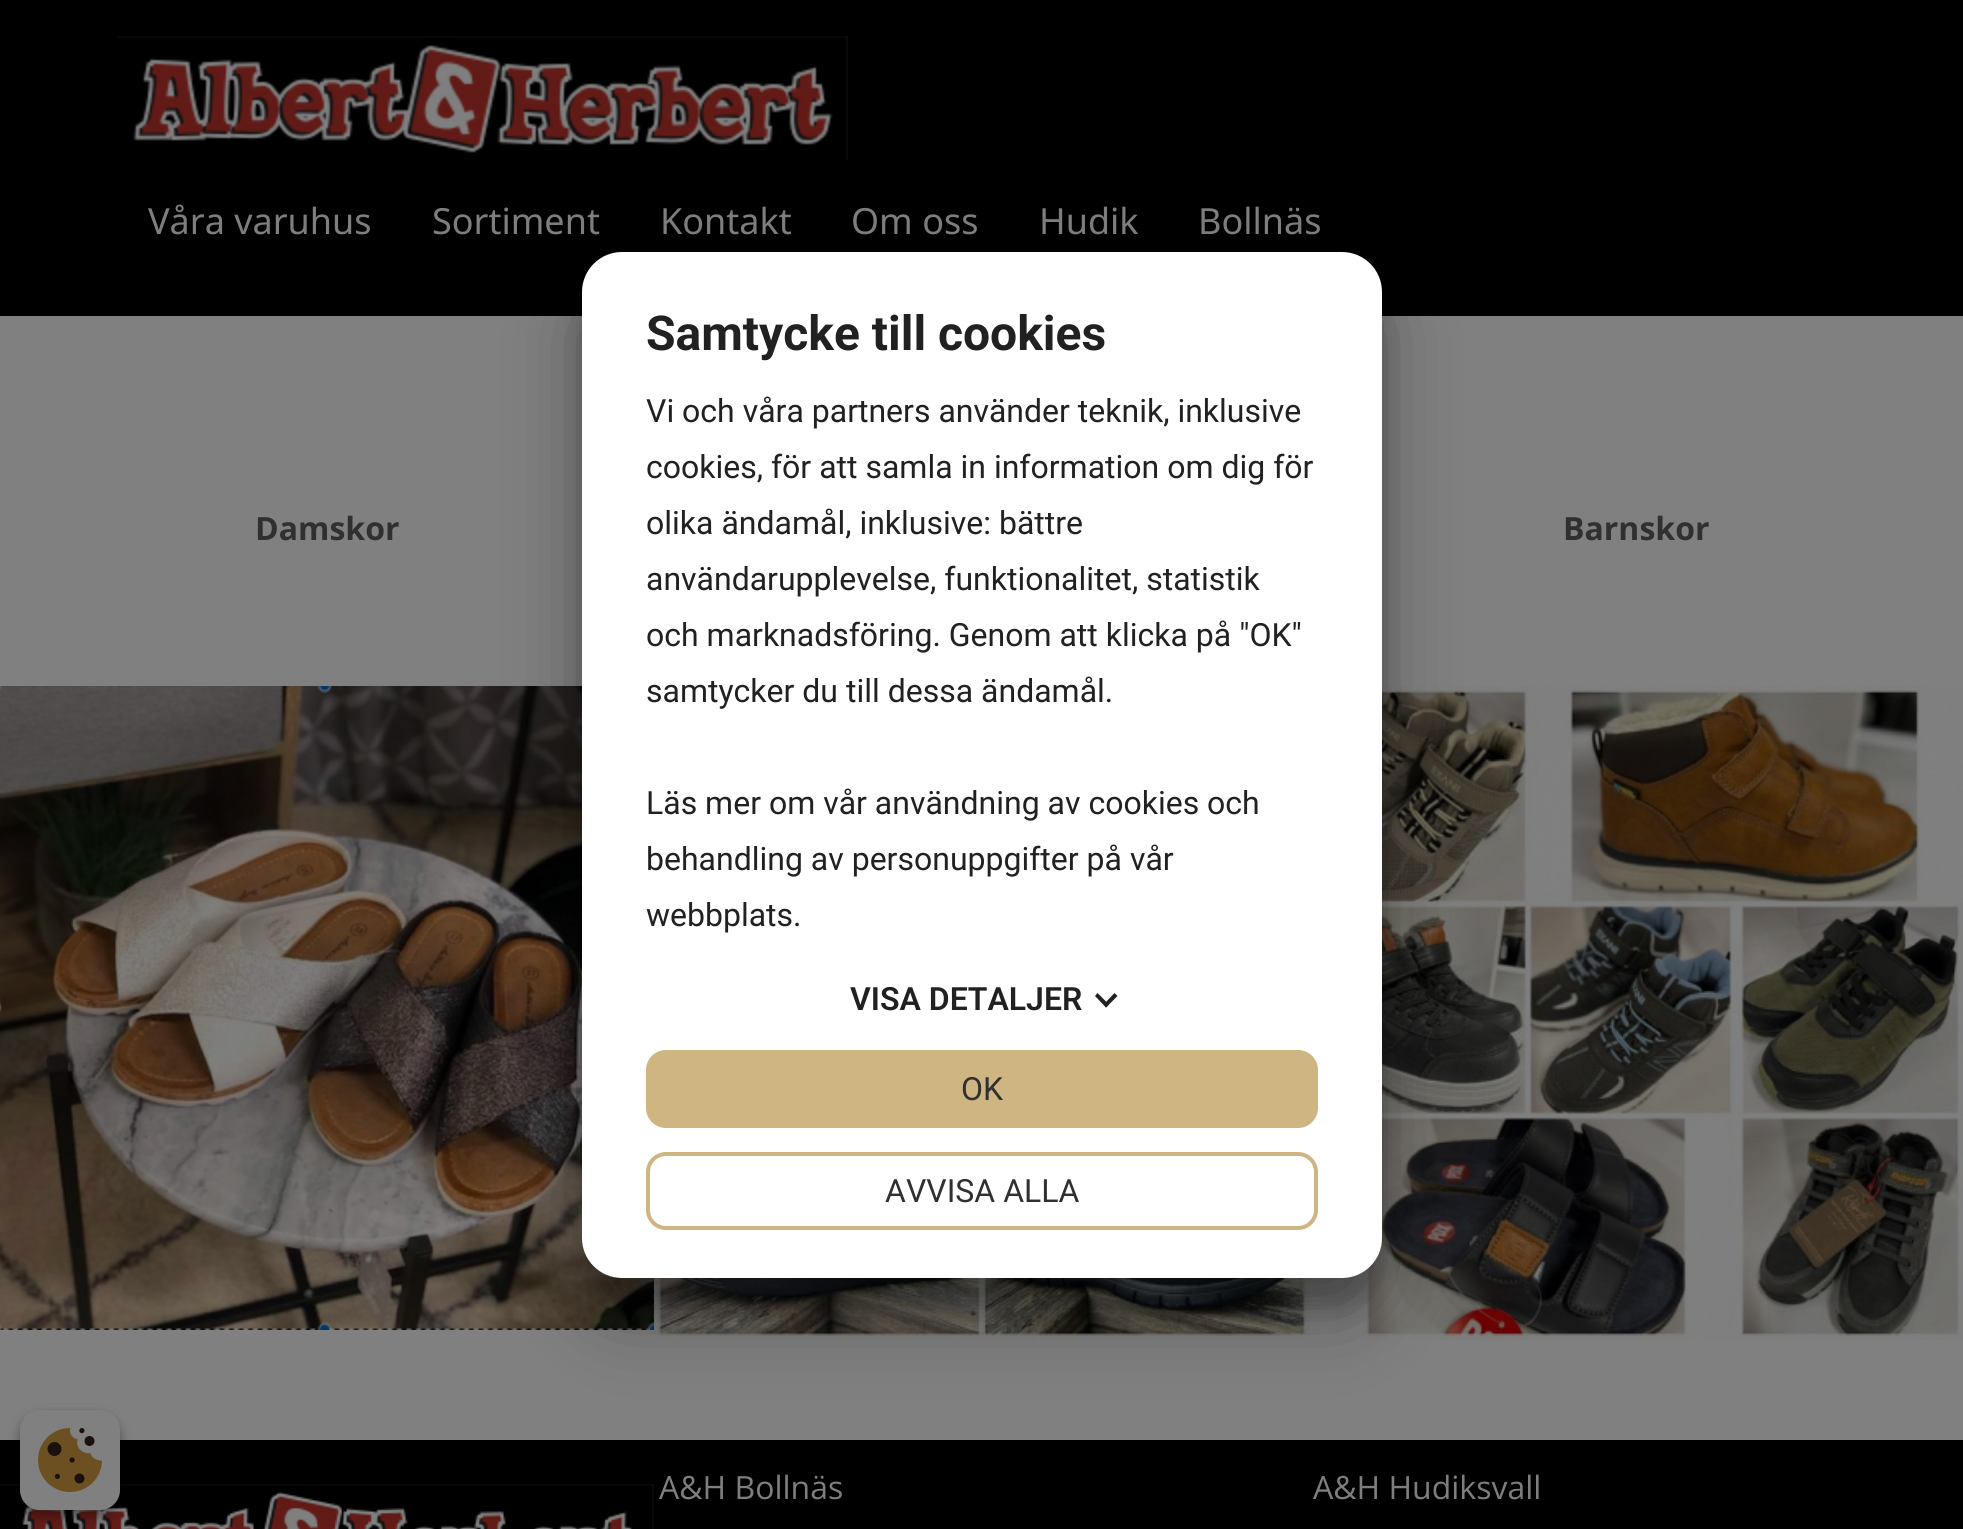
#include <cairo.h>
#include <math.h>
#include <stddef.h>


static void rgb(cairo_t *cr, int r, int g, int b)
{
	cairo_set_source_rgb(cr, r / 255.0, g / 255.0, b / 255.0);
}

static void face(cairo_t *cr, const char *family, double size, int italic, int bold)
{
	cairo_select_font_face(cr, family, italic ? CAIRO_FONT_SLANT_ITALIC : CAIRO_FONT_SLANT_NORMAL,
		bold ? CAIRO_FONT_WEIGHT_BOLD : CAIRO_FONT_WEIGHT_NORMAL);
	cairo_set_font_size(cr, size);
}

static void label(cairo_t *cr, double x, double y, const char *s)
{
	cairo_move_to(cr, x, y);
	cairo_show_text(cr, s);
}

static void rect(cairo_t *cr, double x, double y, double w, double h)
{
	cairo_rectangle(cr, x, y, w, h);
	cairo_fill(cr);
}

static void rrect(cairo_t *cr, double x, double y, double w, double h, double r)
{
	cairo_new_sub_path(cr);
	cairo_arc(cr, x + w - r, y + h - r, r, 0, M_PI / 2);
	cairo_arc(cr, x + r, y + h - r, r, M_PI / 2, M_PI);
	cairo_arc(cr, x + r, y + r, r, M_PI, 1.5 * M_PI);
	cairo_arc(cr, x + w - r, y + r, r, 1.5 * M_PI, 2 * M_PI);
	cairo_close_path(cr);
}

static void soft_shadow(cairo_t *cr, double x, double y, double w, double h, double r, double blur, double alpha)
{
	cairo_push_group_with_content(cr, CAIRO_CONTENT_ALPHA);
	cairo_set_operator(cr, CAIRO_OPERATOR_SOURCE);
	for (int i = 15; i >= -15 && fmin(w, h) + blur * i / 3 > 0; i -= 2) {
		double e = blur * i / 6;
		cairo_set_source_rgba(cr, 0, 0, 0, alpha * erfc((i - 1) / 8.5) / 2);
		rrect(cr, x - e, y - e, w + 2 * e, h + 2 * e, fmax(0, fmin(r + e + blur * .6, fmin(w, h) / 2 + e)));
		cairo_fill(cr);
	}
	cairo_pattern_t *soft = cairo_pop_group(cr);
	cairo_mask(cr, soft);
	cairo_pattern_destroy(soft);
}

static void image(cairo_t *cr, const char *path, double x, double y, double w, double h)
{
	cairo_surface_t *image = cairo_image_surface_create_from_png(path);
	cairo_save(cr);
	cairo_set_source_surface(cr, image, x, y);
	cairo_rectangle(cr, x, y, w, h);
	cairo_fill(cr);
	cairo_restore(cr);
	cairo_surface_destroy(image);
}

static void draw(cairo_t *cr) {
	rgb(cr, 128, 128, 128);
	cairo_paint(cr);
	rgb(cr, 0, 0, 0);
	rect(cr, 0, 0, 1963, 316);
	image(cr, "image0.png", 118, 36, 730, 124);
	face(cr, "Noto Sans", 36, 0, 0);
	rgb(cr, 126, 126, 126);
	label(cr, 148, 234, "Våra varuhus");
	label(cr, 432, 234, "Sortiment");
	label(cr, 660, 234, "Kontakt");
	label(cr, 851, 234, "Om oss");
	label(cr, 1039, 234, "Hudik");
	label(cr, 1198, 234, "Bollnäs");
	face(cr, "Open Sans", 32, 0, 1);
	rgb(cr, 48, 48, 48);
	label(cr, 255, 540, "Damskor");
	label(cr, 1563, 540, "Barnskor");
	image(cr, "image1.png", 0, 686, 654, 644);
	image(cr, "image2.png", 654, 1278, 656, 62);
	image(cr, "image3.png", 1310, 686, 653, 654);
	rgb(cr, 0, 0, 0);
	rect(cr, 0, 1440, 1963, 89);
	image(cr, "image4.png", 0, 1484, 654, 45);
	face(cr, "Open Sans", 32, 0, 0);
	rgb(cr, 126, 126, 126);
	label(cr, 659, 1499, "A&H Bollnäs");
	label(cr, 1313, 1499, "A&H Hudiksvall");
	rgb(cr, 0, 0, 0);
	soft_shadow(cr, 582, 282, 800, 1026, 40, 12, 0.22);
	soft_shadow(cr, 582, 290, 800, 1026, 40, 38, 0.3);
	rgb(cr, 255, 255, 255);
	rrect(cr, 582, 252, 800, 1026, 40);
	cairo_fill(cr);
	face(cr, "Roboto", 48, 0, 1);
	rgb(cr, 33, 33, 33);
	label(cr, 646, 350, "Samtycke till cookies");
	face(cr, "Roboto", 32, 0, 0);
	label(cr, 646, 422, "Vi och våra partners använder teknik, inklusive");
	label(cr, 646, 478, "cookies, för att samla in information om dig för");
	label(cr, 646, 534, "olika ändamål, inklusive: bättre");
	label(cr, 646, 590, "användarupplevelse, funktionalitet, statistik");
	label(cr, 646, 646, "och marknadsföring. Genom att klicka på \"OK\"");
	label(cr, 646, 702, "samtycker du till dessa ändamål.");
	label(cr, 646, 814, "Läs mer om vår användning av cookies och");
	label(cr, 646, 870, "behandling av personuppgifter på vår");
	label(cr, 646, 926, "webbplats.");
	face(cr, "Roboto SemiBold", 32, 0, 0);
	label(cr, 850, 1010, "VISA DETALJER");
	cairo_new_path(cr);
	cairo_move_to(cr, 1114.5, 993);
	cairo_line_to(cr, 1117.5, 996);
	cairo_line_to(cr, 1106, 1007.5);
	cairo_line_to(cr, 1103.5, 1004.5);
	cairo_close_path(cr);
	cairo_fill(cr);
	cairo_new_path(cr);
	cairo_move_to(cr, 1097.5, 993);
	cairo_line_to(cr, 1109, 1004.5);
	cairo_line_to(cr, 1106, 1007.5);
	cairo_line_to(cr, 1095, 996);
	cairo_close_path(cr);
	cairo_fill(cr);
	rgb(cr, 206, 181, 130);
	rrect(cr, 648, 1052, 668, 74, 18);
	cairo_fill_preserve(cr);
	cairo_set_line_width(cr, 4);
	cairo_stroke(cr);
	face(cr, "Roboto", 32, 0, 0);
	rgb(cr, 48, 48, 48);
	label(cr, 961, 1100, "OK");
	rrect(cr, 648, 1154, 668, 74, 18);
	rgb(cr, 206, 181, 130);
	cairo_stroke(cr);
	rgb(cr, 48, 48, 48);
	label(cr, 885, 1202, "AVVISA ALLA");
	rgb(cr, 0, 0, 0);
	soft_shadow(cr, 20, 1416, 100, 100, 20, 6, 0.23);
	soft_shadow(cr, 20, 1416, 100, 100, 20, 6, 0.16);
	rgb(cr, 128, 128, 128);
	rrect(cr, 20, 1410, 100, 100, 20);
	cairo_fill(cr);
	image(cr, "image5.png", 38, 1428, 64, 64);
}

int main(void) {
	cairo_surface_t *surface = cairo_image_surface_create(CAIRO_FORMAT_RGB24, 1963, 1529);
	cairo_t *cr = cairo_create(surface);
	cairo_font_options_t *options = cairo_font_options_create();
	cairo_font_options_set_hint_metrics(options, CAIRO_HINT_METRICS_OFF);
	cairo_font_options_set_hint_style(options, CAIRO_HINT_STYLE_NONE);
	cairo_set_font_options(cr, options);
	cairo_set_miter_limit(cr, 4);
	draw(cr);
	cairo_surface_write_to_png(surface, "render.png");
	cairo_font_options_destroy(options);
	cairo_destroy(cr);
	cairo_surface_destroy(surface);
	return 0;
}
